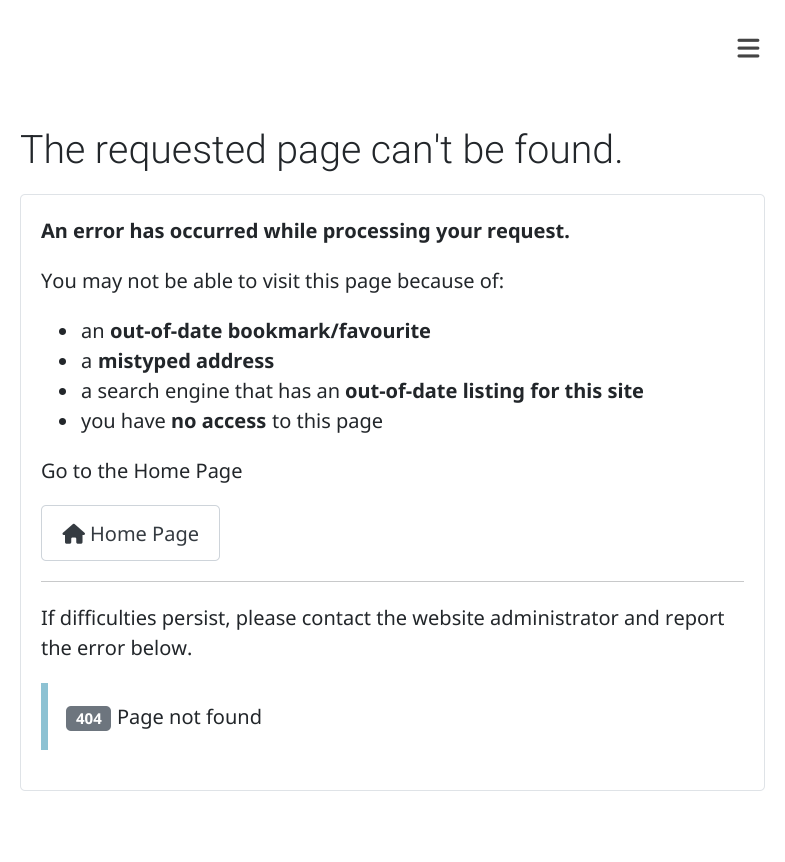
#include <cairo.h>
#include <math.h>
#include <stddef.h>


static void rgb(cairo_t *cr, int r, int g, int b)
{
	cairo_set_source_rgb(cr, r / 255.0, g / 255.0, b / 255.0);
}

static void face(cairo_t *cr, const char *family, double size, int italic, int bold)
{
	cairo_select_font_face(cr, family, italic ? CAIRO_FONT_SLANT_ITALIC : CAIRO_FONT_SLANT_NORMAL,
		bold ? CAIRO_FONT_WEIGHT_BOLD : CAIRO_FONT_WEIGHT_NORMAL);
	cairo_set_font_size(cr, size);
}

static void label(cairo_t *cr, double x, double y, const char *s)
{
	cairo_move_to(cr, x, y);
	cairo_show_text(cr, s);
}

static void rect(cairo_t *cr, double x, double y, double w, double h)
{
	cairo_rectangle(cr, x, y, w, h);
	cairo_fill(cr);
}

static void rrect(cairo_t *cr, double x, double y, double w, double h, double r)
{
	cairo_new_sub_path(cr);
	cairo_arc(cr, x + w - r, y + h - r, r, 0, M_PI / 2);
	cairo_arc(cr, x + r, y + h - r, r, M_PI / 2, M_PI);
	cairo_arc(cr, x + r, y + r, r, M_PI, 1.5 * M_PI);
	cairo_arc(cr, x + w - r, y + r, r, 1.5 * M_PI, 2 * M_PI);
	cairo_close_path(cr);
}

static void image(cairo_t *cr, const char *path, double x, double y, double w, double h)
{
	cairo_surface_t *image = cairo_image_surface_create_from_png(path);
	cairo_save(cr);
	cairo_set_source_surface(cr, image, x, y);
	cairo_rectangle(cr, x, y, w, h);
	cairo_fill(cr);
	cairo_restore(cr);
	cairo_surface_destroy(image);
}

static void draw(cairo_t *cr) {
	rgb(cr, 255, 255, 255);
	cairo_paint(cr);
	image(cr, "image0.png", 737, 38, 23, 20);
	face(cr, "Roboto Light", 39.25, 0, 0);
	rgb(cr, 34, 38, 42);
	label(cr, 20, 163, "The requested page can't be found.");
	rrect(cr, 20.5, 194.5, 744, 596, 4.5);
	rgb(cr, 223, 227, 231);
	cairo_set_line_width(cr, 1);
	cairo_stroke(cr);
	face(cr, "Noto Sans", 20, 0, 1);
	rgb(cr, 34, 38, 42);
	label(cr, 41, 238, "An error has occurred while processing your request.");
	face(cr, "Noto Sans", 20, 0, 0);
	label(cr, 41, 288, "You may not be able to visit this page because of:");
	cairo_new_path(cr);
	cairo_arc(cr, 62.5, 331.5, 3.5, 0, 2 * M_PI);
	cairo_fill(cr);
	label(cr, 81, 338, "an");
	face(cr, "Noto Sans", 20, 0, 1);
	label(cr, 110, 338, "out-of-date bookmark/favourite");
	cairo_new_path(cr);
	cairo_arc(cr, 62.5, 361.5, 3.5, 0, 2 * M_PI);
	cairo_fill(cr);
	face(cr, "Noto Sans", 20, 0, 0);
	label(cr, 81, 368, "a");
	face(cr, "Noto Sans", 20, 0, 1);
	label(cr, 98, 368, "mistyped address");
	cairo_new_path(cr);
	cairo_arc(cr, 62.5, 391.5, 3.5, 0, 2 * M_PI);
	cairo_fill(cr);
	face(cr, "Noto Sans", 20, 0, 0);
	label(cr, 81, 398, "a search engine that has an");
	face(cr, "Noto Sans", 20, 0, 1);
	label(cr, 345, 398, "out-of-date listing for this site");
	cairo_new_path(cr);
	cairo_arc(cr, 62.5, 421.5, 3.5, 0, 2 * M_PI);
	cairo_fill(cr);
	face(cr, "Noto Sans", 20, 0, 0);
	label(cr, 81, 428, "you have");
	face(cr, "Noto Sans", 20, 0, 1);
	label(cr, 171, 428, "no access");
	face(cr, "Noto Sans", 20, 0, 0);
	label(cr, 272, 428, "to this page");
	label(cr, 41, 478, "Go to the Home Page");
	rrect(cr, 41.5, 505.5, 178, 55, 4.5);
	rgb(cr, 206, 212, 218);
	cairo_stroke(cr);
	image(cr, "image1.png", 62, 523, 23, 21);
	rgb(cr, 53, 59, 65);
	label(cr, 90, 541, "Home Page");
	rgb(cr, 200, 201, 202);
	rect(cr, 41, 581, 703, 1);
	rgb(cr, 34, 38, 42);
	label(cr, 41, 625, "If difficulties persist, please contact the website administrator and report");
	label(cr, 41, 655, "the error below.");
	rgb(cr, 141, 194, 211);
	rect(cr, 41, 683, 7, 67);
	rgb(cr, 109, 117, 126);
	rrect(cr, 66, 706, 45, 25, 5);
	cairo_fill(cr);
	face(cr, "Noto Sans", 15, 0, 1);
	rgb(cr, 255, 255, 255);
	label(cr, 76, 724, "404");
	face(cr, "Noto Sans", 20, 0, 0);
	rgb(cr, 34, 38, 42);
	label(cr, 117, 724, "Page not found");
}

int main(void) {
	cairo_surface_t *surface = cairo_image_surface_create(CAIRO_FORMAT_RGB24, 785, 862);
	cairo_t *cr = cairo_create(surface);
	cairo_font_options_t *options = cairo_font_options_create();
	cairo_font_options_set_hint_metrics(options, CAIRO_HINT_METRICS_OFF);
	cairo_font_options_set_hint_style(options, CAIRO_HINT_STYLE_NONE);
	cairo_set_font_options(cr, options);
	cairo_set_miter_limit(cr, 4);
	draw(cr);
	cairo_surface_write_to_png(surface, "render.png");
	cairo_font_options_destroy(options);
	cairo_destroy(cr);
	cairo_surface_destroy(surface);
	return 0;
}
